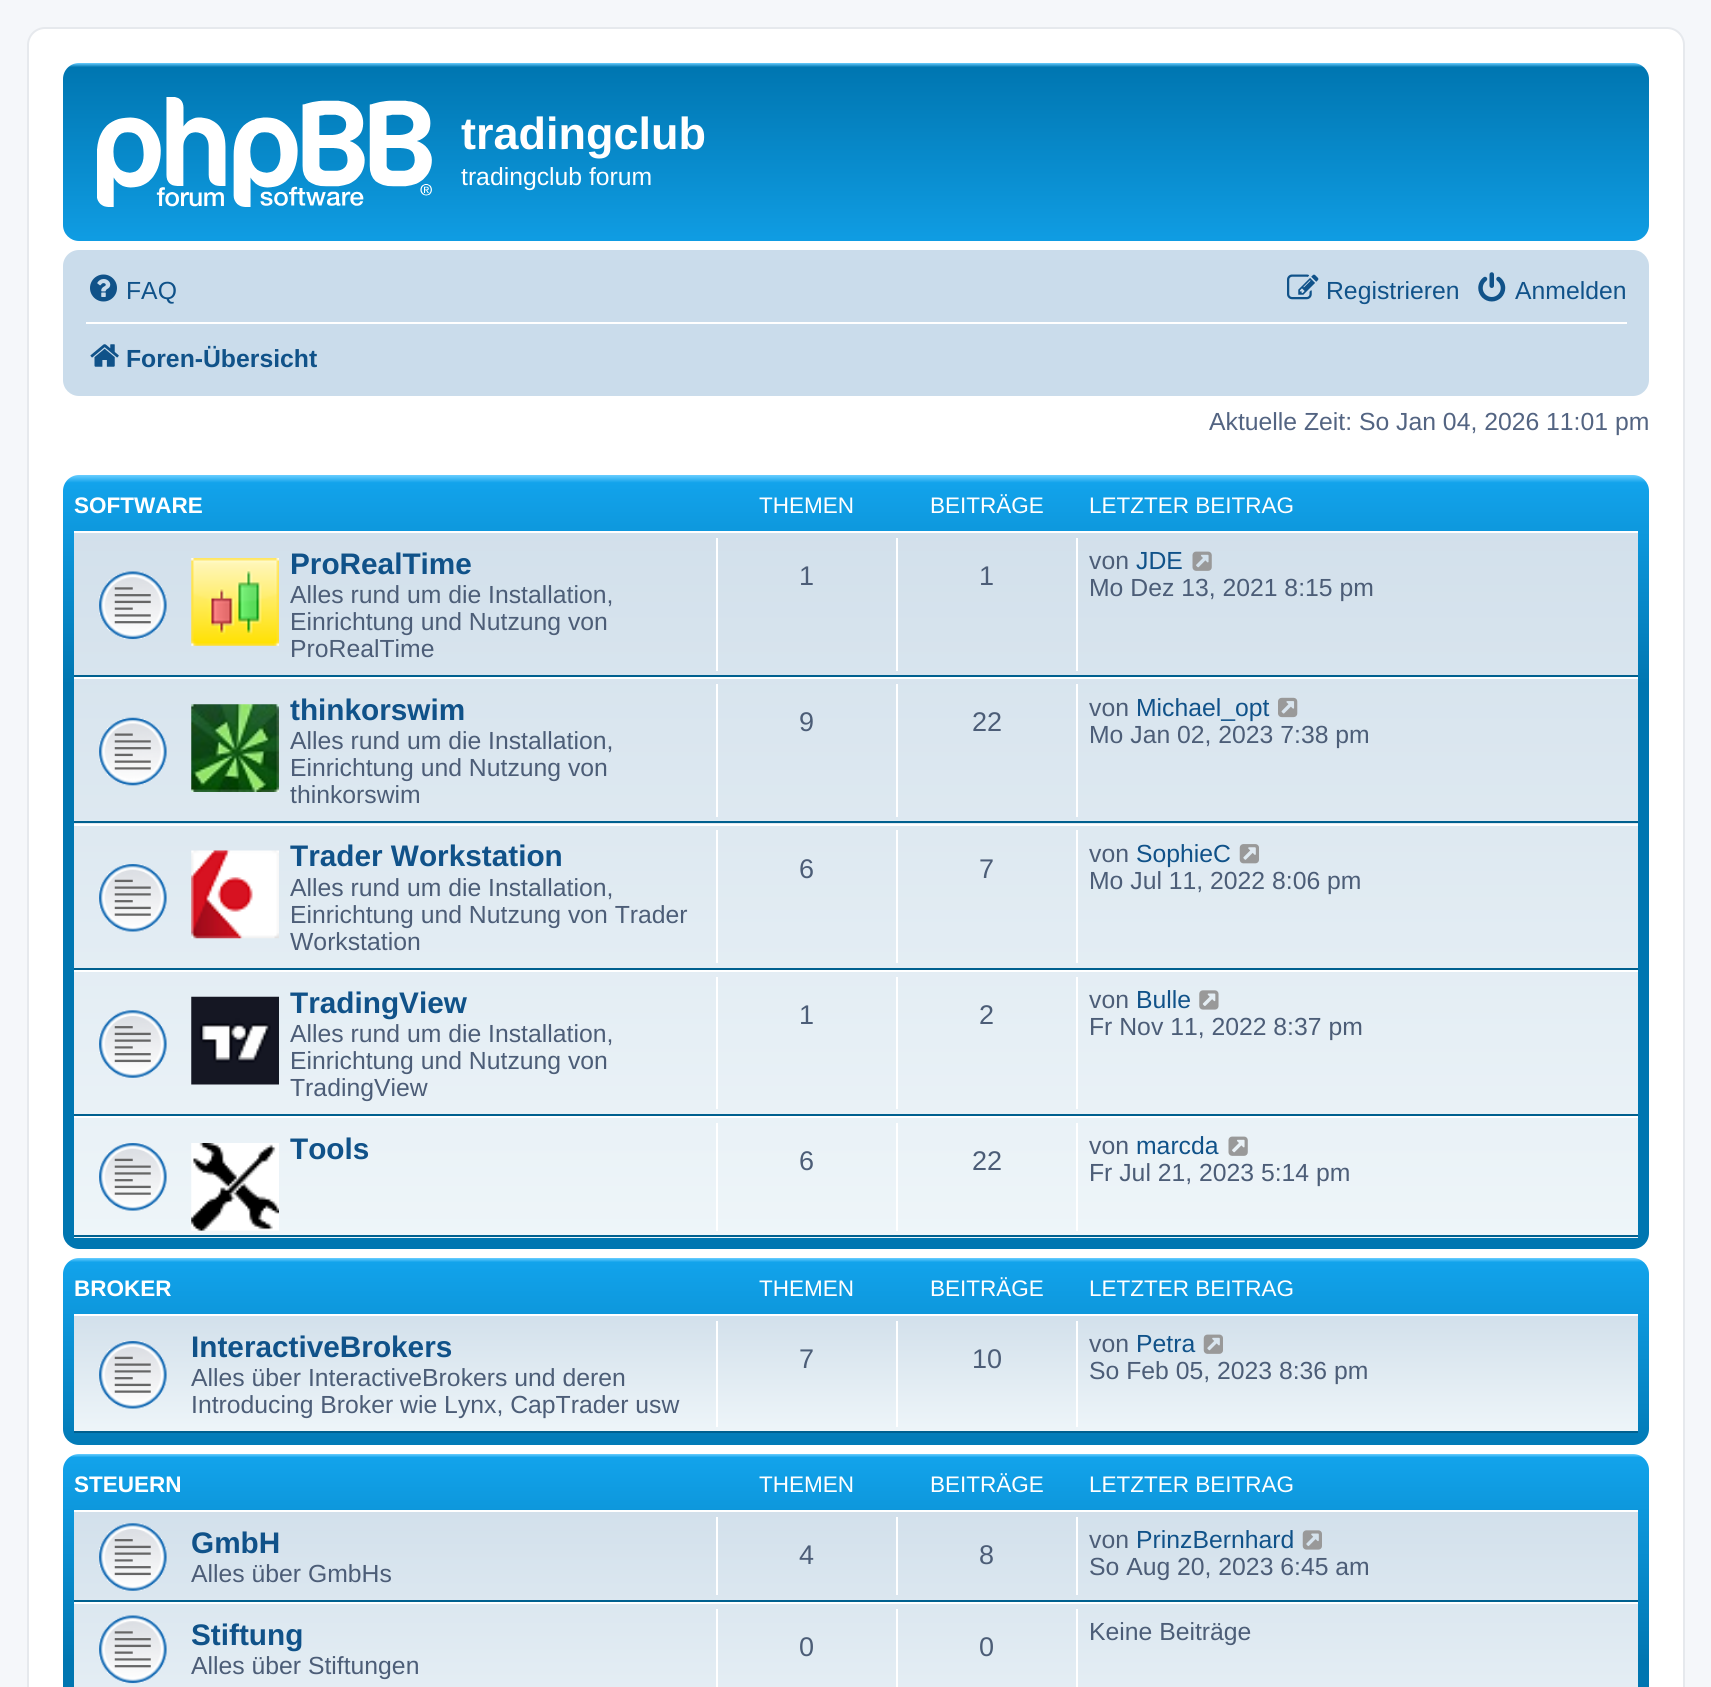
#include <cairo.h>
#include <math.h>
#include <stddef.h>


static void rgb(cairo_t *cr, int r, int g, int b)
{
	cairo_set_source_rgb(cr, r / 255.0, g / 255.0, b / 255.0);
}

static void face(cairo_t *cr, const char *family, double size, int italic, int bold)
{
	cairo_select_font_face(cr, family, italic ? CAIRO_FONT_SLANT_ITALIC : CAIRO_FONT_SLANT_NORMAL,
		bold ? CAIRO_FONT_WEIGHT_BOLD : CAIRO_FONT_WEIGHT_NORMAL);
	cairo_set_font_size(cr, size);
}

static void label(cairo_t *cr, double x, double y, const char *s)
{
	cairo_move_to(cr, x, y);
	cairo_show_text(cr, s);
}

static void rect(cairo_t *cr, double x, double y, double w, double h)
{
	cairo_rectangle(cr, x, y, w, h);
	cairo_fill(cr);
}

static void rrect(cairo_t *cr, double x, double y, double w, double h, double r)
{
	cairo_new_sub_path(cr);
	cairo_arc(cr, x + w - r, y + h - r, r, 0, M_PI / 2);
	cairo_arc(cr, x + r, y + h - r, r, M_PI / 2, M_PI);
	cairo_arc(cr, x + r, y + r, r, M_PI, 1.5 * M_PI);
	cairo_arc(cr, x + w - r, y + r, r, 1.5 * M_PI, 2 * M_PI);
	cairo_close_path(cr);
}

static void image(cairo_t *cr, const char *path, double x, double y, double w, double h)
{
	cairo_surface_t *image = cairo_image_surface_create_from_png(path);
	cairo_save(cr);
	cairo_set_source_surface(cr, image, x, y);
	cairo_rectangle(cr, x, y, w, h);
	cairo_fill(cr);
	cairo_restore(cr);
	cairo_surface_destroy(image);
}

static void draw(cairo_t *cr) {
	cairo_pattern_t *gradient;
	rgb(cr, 245, 247, 250);
	cairo_paint(cr);
	rgb(cr, 255, 255, 255);
	rrect(cr, 28, 28, 1656, 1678, 17);
	cairo_fill_preserve(cr);
	rgb(cr, 230, 233, 237);
	cairo_stroke(cr);
	gradient = cairo_pattern_create_linear(856, 63, 856, 270);
	cairo_pattern_add_color_stop_rgba(gradient, 0, 0.416, 0.808, 1, 1);
	cairo_pattern_add_color_stop_rgba(gradient, 0.02, 0, 0.463, 0.694, 1);
	cairo_pattern_add_color_stop_rgba(gradient, 1, 0.071, 0.639, 0.922, 1);
	cairo_set_source(cr, gradient);
	cairo_pattern_destroy(gradient);
	rrect(cr, 63, 63, 1586, 178, 16);
	cairo_fill(cr);
	image(cr, "image0.png", 97, 97, 335, 110);
	face(cr, "Liberation Sans", 45, 0, 1);
	rgb(cr, 255, 255, 255);
	label(cr, 461, 149, "tradingclub");
	face(cr, "Liberation Sans", 24.75, 0, 0);
	label(cr, 461, 185, "tradingclub forum");
	rgb(cr, 202, 220, 235);
	rrect(cr, 63, 250, 1586, 146, 16);
	cairo_fill(cr);
	image(cr, "image1.png", 90, 274, 27, 28);
	rgb(cr, 16, 82, 137);
	label(cr, 126, 299, "FAQ");
	image(cr, "image2.png", 1287, 274, 32, 26);
	label(cr, 1326, 299, "Registrieren");
	image(cr, "image3.png", 1478, 272, 28, 30);
	label(cr, 1515, 299, "Anmelden");
	rgb(cr, 255, 255, 255);
	rect(cr, 86, 322, 1541, 2);
	image(cr, "image4.png", 90, 344, 29, 23);
	face(cr, "Liberation Sans", 24.75, 0, 1);
	rgb(cr, 16, 82, 137);
	label(cr, 126, 367, "Foren-Übersicht");
	face(cr, "Liberation Sans", 24.75, 0, 0);
	rgb(cr, 83, 100, 130);
	label(cr, 1209, 430, "Aktuelle Zeit: So Jan 04, 2026 11:01 pm");
	gradient = cairo_pattern_create_linear(856, 475, 856, 1249);
	cairo_pattern_add_color_stop_rgba(gradient, 0, 0.416, 0.808, 1, 1);
	cairo_pattern_add_color_stop_rgba(gradient, 0.01, 0.071, 0.639, 0.922, 1);
	cairo_pattern_add_color_stop_rgba(gradient, 0.27, 0, 0.463, 0.694, 1);
	cairo_pattern_add_color_stop_rgba(gradient, 1, 0, 0.463, 0.694, 1);
	cairo_set_source(cr, gradient);
	cairo_pattern_destroy(gradient);
	rrect(cr, 63, 475, 1586, 774, 16);
	cairo_fill(cr);
	face(cr, "Liberation Sans", 22.5, 0, 1);
	rgb(cr, 255, 255, 255);
	label(cr, 74, 513, "SOFTWARE");
	face(cr, "Liberation Sans", 22.5, 0, 0);
	label(cr, 759, 513, "THEMEN");
	label(cr, 930, 513, "BEITRÄGE");
	label(cr, 1089, 513, "LETZTER BEITRAG");
	gradient = cairo_pattern_create_linear(856, 531, 856, 1238);
	cairo_pattern_add_color_stop_rgba(gradient, 0, 0.824, 0.878, 0.922, 1);
	cairo_pattern_add_color_stop_rgba(gradient, 1, 0.933, 0.961, 0.976, 1);
	cairo_set_source(cr, gradient);
	cairo_pattern_destroy(gradient);
	rect(cr, 74, 533, 1564, 705);
	rgb(cr, 255, 255, 255);
	rect(cr, 74, 531, 1564, 2);
	rgb(cr, 0, 96, 143);
	rect(cr, 74, 675, 1564, 2);
	image(cr, "image5.png", 99, 571, 68, 69);
	image(cr, "image6.png", 191, 558, 88, 88);
	face(cr, "Liberation Sans", 29.75, 0, 1);
	rgb(cr, 16, 82, 137);
	label(cr, 290, 574, "ProRealTime");
	face(cr, "Liberation Sans", 24.75, 0, 0);
	rgb(cr, 76, 93, 119);
	label(cr, 290, 603, "Alles rund um die Installation,");
	label(cr, 290, 630, "Einrichtung und Nutzung von");
	label(cr, 290, 657, "ProRealTime");
	rgb(cr, 255, 255, 255);
	rect(cr, 716, 538, 2, 133);
	face(cr, "Liberation Sans", 27, 0, 0);
	rgb(cr, 76, 93, 119);
	label(cr, 799, 585, "1");
	rgb(cr, 255, 255, 255);
	rect(cr, 896, 538, 2, 133);
	rgb(cr, 76, 93, 119);
	label(cr, 979, 585, "1");
	rgb(cr, 255, 255, 255);
	rect(cr, 1076, 538, 2, 133);
	face(cr, "Liberation Sans", 24.75, 0, 0);
	rgb(cr, 76, 93, 119);
	label(cr, 1089, 569, "von");
	rgb(cr, 16, 82, 137);
	label(cr, 1136, 569, "JDE");
	image(cr, "image7.png", 1192, 551, 20, 20);
	rgb(cr, 76, 93, 119);
	label(cr, 1089, 596, "Mo Dez 13, 2021 8:15 pm");
	rgb(cr, 255, 255, 255);
	rect(cr, 74, 677, 1564, 2);
	rgb(cr, 0, 96, 143);
	rect(cr, 74, 821, 1564, 2);
	image(cr, "image8.png", 99, 717, 68, 69);
	image(cr, "image9.png", 191, 704, 88, 88);
	face(cr, "Liberation Sans", 29.75, 0, 1);
	rgb(cr, 16, 82, 137);
	label(cr, 290, 720, "thinkorswim");
	face(cr, "Liberation Sans", 24.75, 0, 0);
	rgb(cr, 76, 93, 119);
	label(cr, 290, 749, "Alles rund um die Installation,");
	label(cr, 290, 776, "Einrichtung und Nutzung von");
	label(cr, 290, 803, "thinkorswim");
	rgb(cr, 255, 255, 255);
	rect(cr, 716, 684, 2, 133);
	face(cr, "Liberation Sans", 27, 0, 0);
	rgb(cr, 76, 93, 119);
	label(cr, 799, 731, "9");
	rgb(cr, 255, 255, 255);
	rect(cr, 896, 684, 2, 133);
	rgb(cr, 76, 93, 119);
	label(cr, 972, 731, "22");
	rgb(cr, 255, 255, 255);
	rect(cr, 1076, 684, 2, 133);
	face(cr, "Liberation Sans", 24.75, 0, 0);
	rgb(cr, 76, 93, 119);
	label(cr, 1089, 716, "von");
	rgb(cr, 16, 82, 137);
	label(cr, 1136, 716, "Michael_opt");
	image(cr, "image10.png", 1278, 697, 20, 21);
	rgb(cr, 76, 93, 119);
	label(cr, 1089, 743, "Mo Jan 02, 2023 7:38 pm");
	rgb(cr, 255, 255, 255);
	rect(cr, 74, 824, 1564, 2);
	rgb(cr, 0, 96, 143);
	rect(cr, 74, 968, 1564, 2);
	image(cr, "image11.png", 99, 864, 68, 68);
	image(cr, "image12.png", 191, 850, 88, 89);
	face(cr, "Liberation Sans", 29.75, 0, 1);
	rgb(cr, 16, 82, 137);
	label(cr, 290, 866, "Trader Workstation");
	face(cr, "Liberation Sans", 24.75, 0, 0);
	rgb(cr, 76, 93, 119);
	label(cr, 290, 896, "Alles rund um die Installation,");
	label(cr, 290, 923, "Einrichtung und Nutzung von Trader");
	label(cr, 290, 950, "Workstation");
	rgb(cr, 255, 255, 255);
	rect(cr, 716, 830, 2, 133);
	face(cr, "Liberation Sans", 27, 0, 0);
	rgb(cr, 76, 93, 119);
	label(cr, 799, 878, "6");
	rgb(cr, 255, 255, 255);
	rect(cr, 896, 830, 2, 133);
	rgb(cr, 76, 93, 119);
	label(cr, 979, 878, "7");
	rgb(cr, 255, 255, 255);
	rect(cr, 1076, 830, 2, 133);
	face(cr, "Liberation Sans", 24.75, 0, 0);
	rgb(cr, 76, 93, 119);
	label(cr, 1089, 862, "von");
	rgb(cr, 16, 82, 137);
	label(cr, 1136, 862, "SophieC");
	image(cr, "image13.png", 1239, 844, 20, 20);
	rgb(cr, 76, 93, 119);
	label(cr, 1089, 889, "Mo Jul 11, 2022 8:06 pm");
	rgb(cr, 255, 255, 255);
	rect(cr, 74, 970, 1564, 2);
	rgb(cr, 0, 96, 143);
	rect(cr, 74, 1114, 1564, 2);
	image(cr, "image14.png", 99, 1010, 68, 68);
	image(cr, "image15.png", 191, 996, 88, 89);
	face(cr, "Liberation Sans", 29.75, 0, 1);
	rgb(cr, 16, 82, 137);
	label(cr, 290, 1013, "TradingView");
	face(cr, "Liberation Sans", 24.75, 0, 0);
	rgb(cr, 76, 93, 119);
	label(cr, 290, 1042, "Alles rund um die Installation,");
	label(cr, 290, 1069, "Einrichtung und Nutzung von");
	label(cr, 290, 1096, "TradingView");
	rgb(cr, 255, 255, 255);
	rect(cr, 716, 977, 2, 132);
	face(cr, "Liberation Sans", 27, 0, 0);
	rgb(cr, 76, 93, 119);
	label(cr, 799, 1024, "1");
	rgb(cr, 255, 255, 255);
	rect(cr, 896, 977, 2, 132);
	rgb(cr, 76, 93, 119);
	label(cr, 979, 1024, "2");
	rgb(cr, 255, 255, 255);
	rect(cr, 1076, 977, 2, 132);
	face(cr, "Liberation Sans", 24.75, 0, 0);
	rgb(cr, 76, 93, 119);
	label(cr, 1089, 1008, "von");
	rgb(cr, 16, 82, 137);
	label(cr, 1136, 1008, "Bulle");
	image(cr, "image16.png", 1199, 990, 20, 20);
	rgb(cr, 76, 93, 119);
	label(cr, 1089, 1035, "Fr Nov 11, 2022 8:37 pm");
	rgb(cr, 255, 255, 255);
	rect(cr, 74, 1116, 1564, 2);
	rgb(cr, 0, 96, 143);
	rect(cr, 74, 1235, 1564, 2);
	image(cr, "image17.png", 99, 1143, 68, 68);
	image(cr, "image18.png", 191, 1143, 88, 88);
	face(cr, "Liberation Sans", 29.75, 0, 1);
	rgb(cr, 16, 82, 137);
	label(cr, 290, 1159, "Tools");
	rgb(cr, 255, 255, 255);
	rect(cr, 716, 1123, 2, 108);
	face(cr, "Liberation Sans", 27, 0, 0);
	rgb(cr, 76, 93, 119);
	label(cr, 799, 1170, "6");
	rgb(cr, 255, 255, 255);
	rect(cr, 896, 1123, 2, 108);
	rgb(cr, 76, 93, 119);
	label(cr, 972, 1170, "22");
	rgb(cr, 255, 255, 255);
	rect(cr, 1076, 1123, 2, 108);
	face(cr, "Liberation Sans", 24.75, 0, 0);
	rgb(cr, 76, 93, 119);
	label(cr, 1089, 1154, "von");
	rgb(cr, 16, 82, 137);
	label(cr, 1136, 1154, "marcda");
	image(cr, "image19.png", 1228, 1136, 20, 20);
	rgb(cr, 76, 93, 119);
	label(cr, 1089, 1181, "Fr Jul 21, 2023 5:14 pm");
	gradient = cairo_pattern_create_linear(856, 1258, 856, 1465);
	cairo_pattern_add_color_stop_rgba(gradient, 0, 0.416, 0.808, 1, 1);
	cairo_pattern_add_color_stop_rgba(gradient, 0.02, 0.071, 0.639, 0.922, 1);
	cairo_pattern_add_color_stop_rgba(gradient, 1, 0, 0.463, 0.694, 1);
	cairo_set_source(cr, gradient);
	cairo_pattern_destroy(gradient);
	rrect(cr, 63, 1258, 1586, 187, 16);
	cairo_fill(cr);
	face(cr, "Liberation Sans", 22.5, 0, 1);
	rgb(cr, 255, 255, 255);
	label(cr, 74, 1296, "BROKER");
	face(cr, "Liberation Sans", 22.5, 0, 0);
	label(cr, 759, 1296, "THEMEN");
	label(cr, 930, 1296, "BEITRÄGE");
	label(cr, 1089, 1296, "LETZTER BEITRAG");
	gradient = cairo_pattern_create_linear(856, 1314, 856, 1433);
	cairo_pattern_add_color_stop_rgba(gradient, 0, 0.824, 0.878, 0.922, 1);
	cairo_pattern_add_color_stop_rgba(gradient, 1, 0.933, 0.961, 0.976, 1);
	cairo_set_source(cr, gradient);
	cairo_pattern_destroy(gradient);
	rect(cr, 74, 1316, 1564, 115);
	rgb(cr, 255, 255, 255);
	rect(cr, 74, 1314, 1564, 2);
	rgb(cr, 0, 96, 143);
	rect(cr, 74, 1431, 1564, 2);
	image(cr, "image20.png", 99, 1341, 68, 68);
	face(cr, "Liberation Sans", 29.75, 0, 1);
	rgb(cr, 16, 82, 137);
	label(cr, 191, 1357, "InteractiveBrokers");
	face(cr, "Liberation Sans", 24.75, 0, 0);
	rgb(cr, 76, 93, 119);
	label(cr, 191, 1386, "Alles über InteractiveBrokers und deren");
	label(cr, 191, 1413, "Introducing Broker wie Lynx, CapTrader usw");
	rgb(cr, 255, 255, 255);
	rect(cr, 716, 1321, 2, 106);
	face(cr, "Liberation Sans", 27, 0, 0);
	rgb(cr, 76, 93, 119);
	label(cr, 799, 1368, "7");
	rgb(cr, 255, 255, 255);
	rect(cr, 896, 1321, 2, 106);
	rgb(cr, 76, 93, 119);
	label(cr, 972, 1368, "10");
	rgb(cr, 255, 255, 255);
	rect(cr, 1076, 1321, 2, 106);
	face(cr, "Liberation Sans", 24.75, 0, 0);
	rgb(cr, 76, 93, 119);
	label(cr, 1089, 1352, "von");
	rgb(cr, 16, 82, 137);
	label(cr, 1136, 1352, "Petra");
	image(cr, "image21.png", 1203, 1334, 20, 20);
	rgb(cr, 76, 93, 119);
	label(cr, 1089, 1379, "So Feb 05, 2023 8:36 pm");
	gradient = cairo_pattern_create_linear(856, 1454, 856, 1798);
	cairo_pattern_add_color_stop_rgba(gradient, 0, 0.416, 0.808, 1, 1);
	cairo_pattern_add_color_stop_rgba(gradient, 0.01, 0.071, 0.639, 0.922, 1);
	cairo_pattern_add_color_stop_rgba(gradient, 0.6, 0, 0.463, 0.694, 1);
	cairo_pattern_add_color_stop_rgba(gradient, 1, 0, 0.463, 0.694, 1);
	cairo_set_source(cr, gradient);
	cairo_pattern_destroy(gradient);
	rrect(cr, 63, 1454, 1586, 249, 16);
	cairo_fill(cr);
	face(cr, "Liberation Sans", 22.5, 0, 1);
	rgb(cr, 255, 255, 255);
	label(cr, 74, 1492, "STEUERN");
	face(cr, "Liberation Sans", 22.5, 0, 0);
	label(cr, 759, 1492, "THEMEN");
	label(cr, 930, 1492, "BEITRÄGE");
	label(cr, 1089, 1492, "LETZTER BEITRAG");
	gradient = cairo_pattern_create_linear(856, 1510, 856, 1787);
	cairo_pattern_add_color_stop_rgba(gradient, 0, 0.824, 0.878, 0.922, 1);
	cairo_pattern_add_color_stop_rgba(gradient, 1, 0.933, 0.961, 0.976, 1);
	cairo_set_source(cr, gradient);
	cairo_pattern_destroy(gradient);
	rect(cr, 74, 1512, 1564, 175);
	rgb(cr, 255, 255, 255);
	rect(cr, 74, 1510, 1564, 2);
	rgb(cr, 0, 96, 143);
	rect(cr, 74, 1600, 1564, 2);
	image(cr, "image22.png", 99, 1523, 68, 68);
	face(cr, "Liberation Sans", 29.75, 0, 1);
	rgb(cr, 16, 82, 137);
	label(cr, 191, 1553, "GmbH");
	face(cr, "Liberation Sans", 24.75, 0, 0);
	rgb(cr, 76, 93, 119);
	label(cr, 191, 1582, "Alles über GmbHs");
	rgb(cr, 255, 255, 255);
	rect(cr, 716, 1517, 2, 78);
	face(cr, "Liberation Sans", 27, 0, 0);
	rgb(cr, 76, 93, 119);
	label(cr, 799, 1564, "4");
	rgb(cr, 255, 255, 255);
	rect(cr, 896, 1517, 2, 78);
	rgb(cr, 76, 93, 119);
	label(cr, 979, 1564, "8");
	rgb(cr, 255, 255, 255);
	rect(cr, 1076, 1517, 2, 78);
	face(cr, "Liberation Sans", 24.75, 0, 0);
	rgb(cr, 76, 93, 119);
	label(cr, 1089, 1548, "von");
	rgb(cr, 16, 82, 137);
	label(cr, 1136, 1548, "PrinzBernhard");
	image(cr, "image23.png", 1302, 1530, 20, 20);
	rgb(cr, 76, 93, 119);
	label(cr, 1089, 1575, "So Aug 20, 2023 6:45 am");
	rgb(cr, 255, 255, 255);
	rect(cr, 74, 1602, 1564, 2);
	image(cr, "image24.png", 99, 1615, 68, 69);
	face(cr, "Liberation Sans", 29.75, 0, 1);
	rgb(cr, 16, 82, 137);
	label(cr, 191, 1645, "Stiftung");
	face(cr, "Liberation Sans", 24.75, 0, 0);
	rgb(cr, 76, 93, 119);
	label(cr, 191, 1674, "Alles über Stiftungen");
	rgb(cr, 255, 255, 255);
	rect(cr, 716, 1609, 2, 78);
	face(cr, "Liberation Sans", 27, 0, 0);
	rgb(cr, 76, 93, 119);
	label(cr, 799, 1656, "0");
	rgb(cr, 255, 255, 255);
	rect(cr, 896, 1609, 2, 78);
	rgb(cr, 76, 93, 119);
	label(cr, 979, 1656, "0");
	rgb(cr, 255, 255, 255);
	rect(cr, 1076, 1609, 2, 78);
	face(cr, "Liberation Sans", 24.75, 0, 0);
	rgb(cr, 76, 93, 119);
	label(cr, 1089, 1640, "Keine Beiträge");
}

int main(void) {
	cairo_surface_t *surface = cairo_image_surface_create(CAIRO_FORMAT_RGB24, 1711, 1687);
	cairo_t *cr = cairo_create(surface);
	cairo_font_options_t *options = cairo_font_options_create();
	cairo_font_options_set_hint_metrics(options, CAIRO_HINT_METRICS_OFF);
	cairo_font_options_set_hint_style(options, CAIRO_HINT_STYLE_NONE);
	cairo_set_font_options(cr, options);
	cairo_set_miter_limit(cr, 4);
	draw(cr);
	cairo_surface_write_to_png(surface, "render.png");
	cairo_font_options_destroy(options);
	cairo_destroy(cr);
	cairo_surface_destroy(surface);
	return 0;
}
